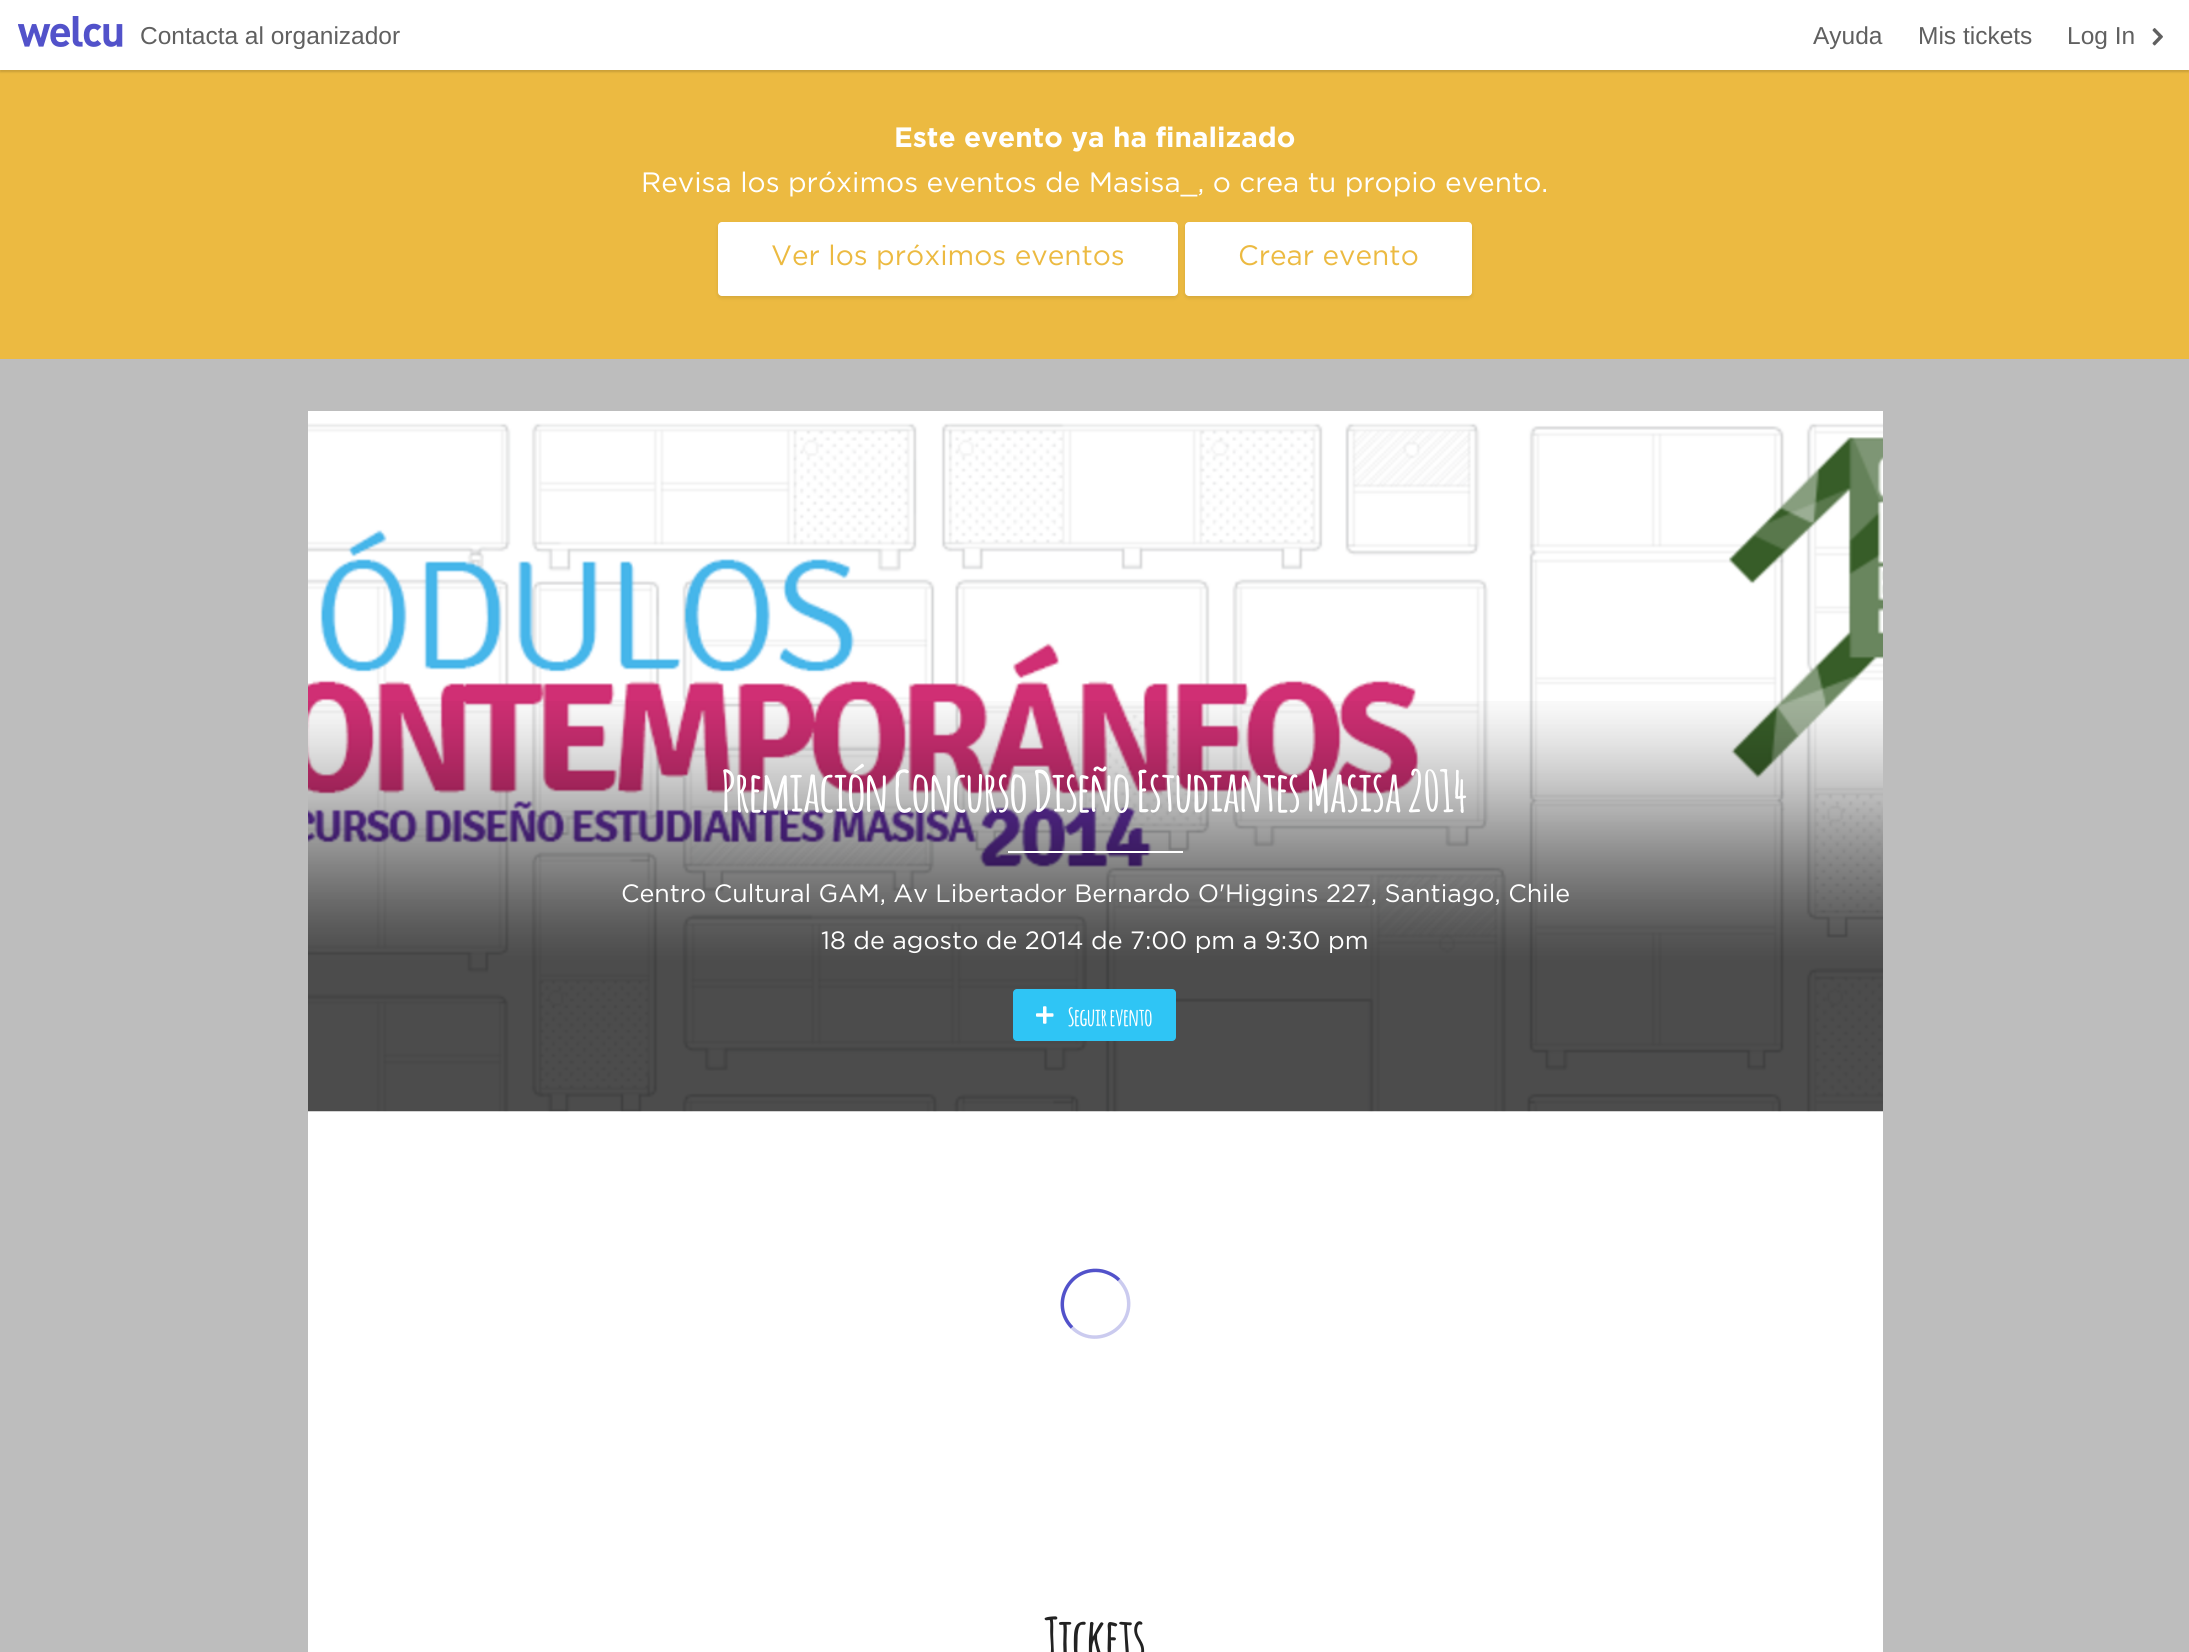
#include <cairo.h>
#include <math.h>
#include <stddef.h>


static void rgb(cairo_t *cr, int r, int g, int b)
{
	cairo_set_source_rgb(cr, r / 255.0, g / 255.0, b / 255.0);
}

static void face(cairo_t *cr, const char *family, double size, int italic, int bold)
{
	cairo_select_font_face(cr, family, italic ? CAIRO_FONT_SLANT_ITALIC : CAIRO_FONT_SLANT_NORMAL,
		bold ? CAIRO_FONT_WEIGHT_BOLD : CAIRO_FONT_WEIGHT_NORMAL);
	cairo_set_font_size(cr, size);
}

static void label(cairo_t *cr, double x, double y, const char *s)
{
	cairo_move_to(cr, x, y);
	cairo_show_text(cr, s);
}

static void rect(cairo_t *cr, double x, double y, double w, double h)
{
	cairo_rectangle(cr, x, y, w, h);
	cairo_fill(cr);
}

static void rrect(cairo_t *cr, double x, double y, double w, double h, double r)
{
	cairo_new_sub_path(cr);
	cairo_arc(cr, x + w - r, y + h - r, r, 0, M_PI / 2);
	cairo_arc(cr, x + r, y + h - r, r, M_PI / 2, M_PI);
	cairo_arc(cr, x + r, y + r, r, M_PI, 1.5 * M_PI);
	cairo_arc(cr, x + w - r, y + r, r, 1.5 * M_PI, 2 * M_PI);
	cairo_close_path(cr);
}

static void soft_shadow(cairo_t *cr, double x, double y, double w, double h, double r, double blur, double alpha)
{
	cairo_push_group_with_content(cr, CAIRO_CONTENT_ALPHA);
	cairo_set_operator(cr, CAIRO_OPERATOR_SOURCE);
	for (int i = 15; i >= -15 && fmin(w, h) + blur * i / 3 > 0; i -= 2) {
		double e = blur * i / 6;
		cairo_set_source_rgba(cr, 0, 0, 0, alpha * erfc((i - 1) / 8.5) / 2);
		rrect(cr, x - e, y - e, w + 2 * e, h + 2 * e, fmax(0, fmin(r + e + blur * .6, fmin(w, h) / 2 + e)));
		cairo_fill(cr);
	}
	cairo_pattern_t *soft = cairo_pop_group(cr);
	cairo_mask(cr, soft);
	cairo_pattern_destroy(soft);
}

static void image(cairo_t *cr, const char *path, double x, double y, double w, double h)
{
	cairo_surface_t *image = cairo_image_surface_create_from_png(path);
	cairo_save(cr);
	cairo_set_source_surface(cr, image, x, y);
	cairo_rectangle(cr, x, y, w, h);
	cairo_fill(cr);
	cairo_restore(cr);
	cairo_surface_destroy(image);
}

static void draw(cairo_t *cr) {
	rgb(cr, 189, 189, 189);
	cairo_paint(cr);
	rgb(cr, 236, 186, 65);
	rect(cr, 0, 70, 2189, 289);
	rgb(cr, 0, 0, 0);
	soft_shadow(cr, 0, 2, 2189, 70, 0, 1, 0.15);
	rgb(cr, 255, 255, 255);
	rect(cr, 0, 0, 2189, 70);
	image(cr, "image0.png", 18, 16, 105, 31);
	face(cr, "Liberation Sans", 24.5, 0, 0);
	rgb(cr, 96, 96, 96);
	label(cr, 140, 44, "Contacta al organizador");
	label(cr, 1813, 44, "Ayuda");
	label(cr, 1918, 44, "Mis tickets");
	label(cr, 2067, 44, "Log In");
	image(cr, "image1.png", 2152, 28, 11, 18);
	face(cr, "Gotham", 28, 0, 1);
	rgb(cr, 255, 255, 255);
	label(cr, 894, 147, "Este evento ya ha finalizado");
	face(cr, "Gotham", 28, 0, 0);
	label(cr, 641, 192, "Revisa los próximos eventos de Masisa_, o crea tu propio evento.");
	rgb(cr, 0, 0, 0);
	soft_shadow(cr, 718, 224, 460, 74, 4, 2, 0.1);
	rgb(cr, 255, 255, 255);
	rrect(cr, 718, 222, 460, 74, 4);
	cairo_fill(cr);
	rgb(cr, 236, 186, 65);
	label(cr, 771, 265, "Ver los próximos eventos");
	rgb(cr, 0, 0, 0);
	soft_shadow(cr, 1185, 224, 287, 74, 4, 2, 0.1);
	rgb(cr, 255, 255, 255);
	rrect(cr, 1185, 222, 287, 74, 4);
	cairo_fill(cr);
	rgb(cr, 236, 186, 65);
	label(cr, 1238, 265, "Crear evento");
	rgb(cr, 255, 255, 255);
	rect(cr, 308, 411, 1575, 1241);
	image(cr, "image2.png", 308, 423, 1575, 689);
	image(cr, "image3.png", 308, 701, 1575, 411);
	face(cr, "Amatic", 56, 0, 1);
	label(cr, 722, 812, "Premiación Concurso Diseño Estudiantes Masisa 2014");
	rect(cr, 1008, 851, 175, 2);
	face(cr, "Gotham", 25.05, 0, 0);
	label(cr, 621, 902, "Centro Cultural GAM, Av Libertador Bernardo O'Higgins 227, Santiago, Chile");
	label(cr, 821, 949, "18 de agosto de 2014 de 7:00 pm a 9:30 pm");
	rgb(cr, 47, 197, 245);
	rrect(cr, 1013, 989, 163, 52, 4);
	cairo_fill(cr);
	image(cr, "image4.png", 1036, 1006, 18, 18);
	face(cr, "Amatic", 24.5, 0, 1);
	rgb(cr, 255, 255, 255);
	label(cr, 1068, 1026, "Seguir evento");
	cairo_new_path(cr);
	cairo_move_to(cr, 1072, 1327.5);
	cairo_curve_to(cr, 1049, 1304, 1070, 1265, 1102, 1271);
	cairo_curve_to(cr, 1108.5, 1272.5, 1114.5, 1275.5, 1119, 1280);
	rgb(cr, 82, 82, 202);
	cairo_set_line_width(cr, 3.5);
	cairo_stroke(cr);
	cairo_new_path(cr);
	cairo_move_to(cr, 1119, 1280);
	cairo_curve_to(cr, 1123.5, 1285, 1127, 1291, 1128, 1297);
	cairo_curve_to(cr, 1134.5, 1329, 1095, 1350.5, 1072, 1327.5);
	cairo_set_source_rgba(cr, 0.322, 0.322, 0.792, 0.3);
	cairo_stroke(cr);
	face(cr, "Amatic", 59, 0, 1);
	rgb(cr, 34, 34, 34);
	label(cr, 1044, 1661, "Tickets");
}

int main(void) {
	cairo_surface_t *surface = cairo_image_surface_create(CAIRO_FORMAT_RGB24, 2189, 1652);
	cairo_t *cr = cairo_create(surface);
	cairo_font_options_t *options = cairo_font_options_create();
	cairo_font_options_set_hint_metrics(options, CAIRO_HINT_METRICS_OFF);
	cairo_font_options_set_hint_style(options, CAIRO_HINT_STYLE_NONE);
	cairo_set_font_options(cr, options);
	cairo_set_miter_limit(cr, 4);
	draw(cr);
	cairo_surface_write_to_png(surface, "render.png");
	cairo_font_options_destroy(options);
	cairo_destroy(cr);
	cairo_surface_destroy(surface);
	return 0;
}
